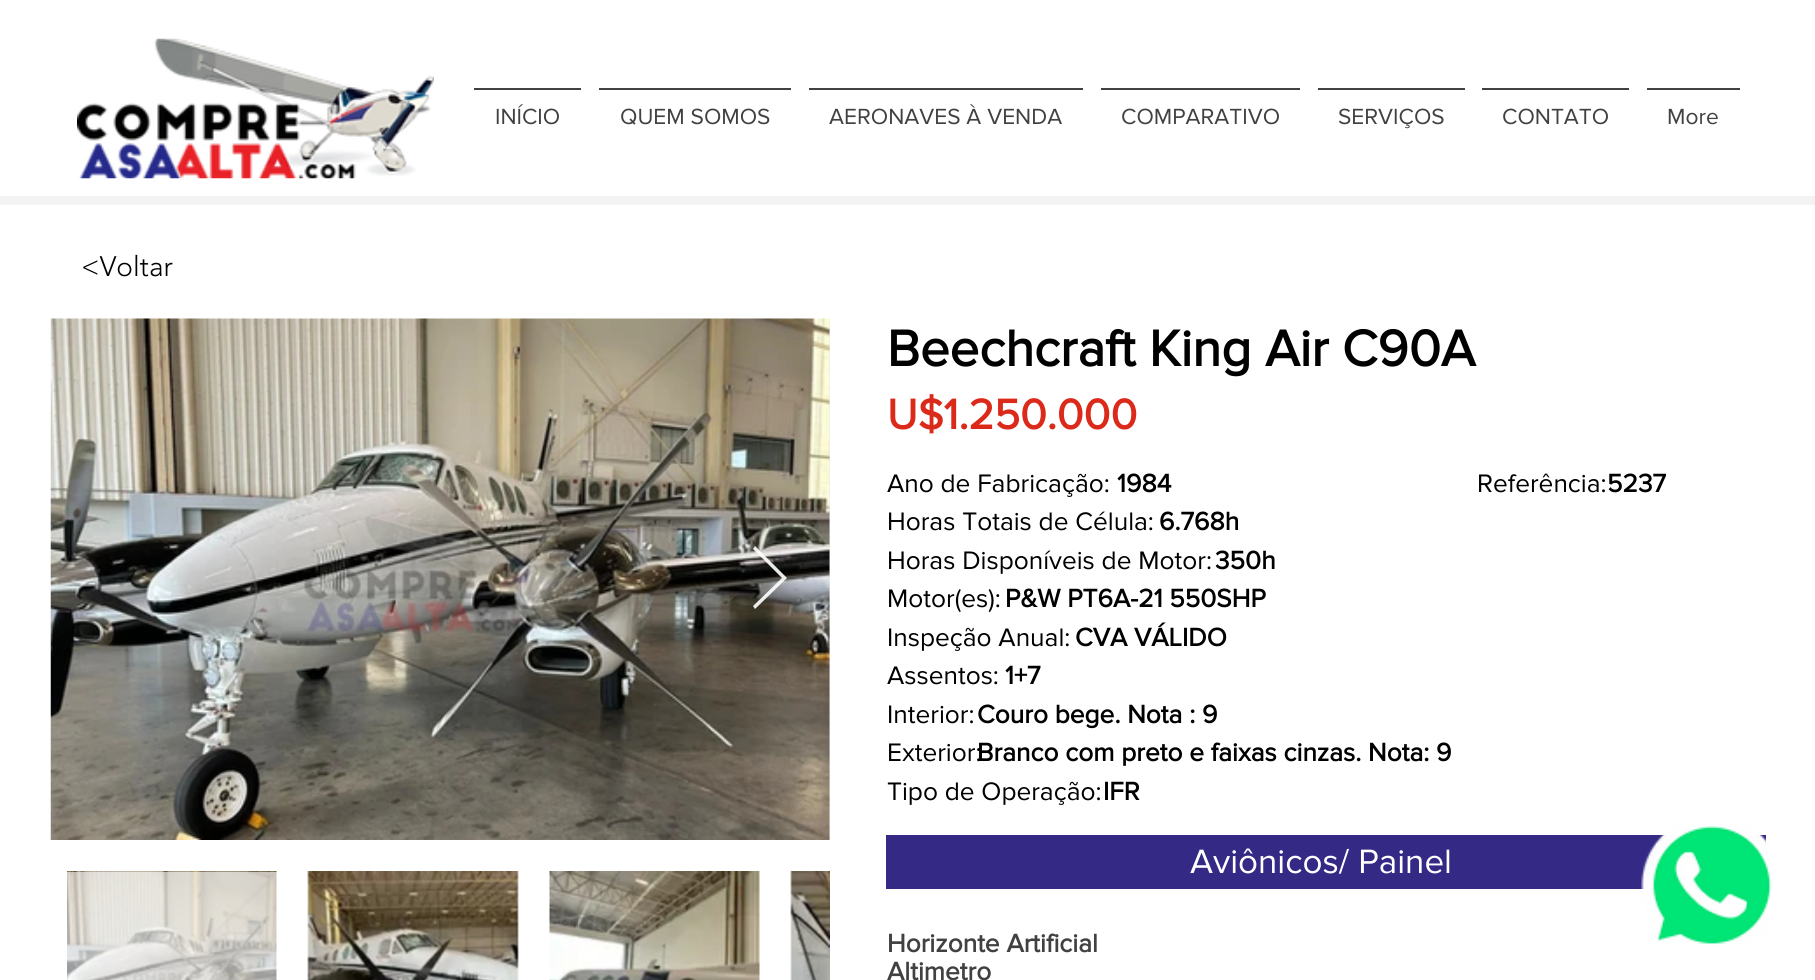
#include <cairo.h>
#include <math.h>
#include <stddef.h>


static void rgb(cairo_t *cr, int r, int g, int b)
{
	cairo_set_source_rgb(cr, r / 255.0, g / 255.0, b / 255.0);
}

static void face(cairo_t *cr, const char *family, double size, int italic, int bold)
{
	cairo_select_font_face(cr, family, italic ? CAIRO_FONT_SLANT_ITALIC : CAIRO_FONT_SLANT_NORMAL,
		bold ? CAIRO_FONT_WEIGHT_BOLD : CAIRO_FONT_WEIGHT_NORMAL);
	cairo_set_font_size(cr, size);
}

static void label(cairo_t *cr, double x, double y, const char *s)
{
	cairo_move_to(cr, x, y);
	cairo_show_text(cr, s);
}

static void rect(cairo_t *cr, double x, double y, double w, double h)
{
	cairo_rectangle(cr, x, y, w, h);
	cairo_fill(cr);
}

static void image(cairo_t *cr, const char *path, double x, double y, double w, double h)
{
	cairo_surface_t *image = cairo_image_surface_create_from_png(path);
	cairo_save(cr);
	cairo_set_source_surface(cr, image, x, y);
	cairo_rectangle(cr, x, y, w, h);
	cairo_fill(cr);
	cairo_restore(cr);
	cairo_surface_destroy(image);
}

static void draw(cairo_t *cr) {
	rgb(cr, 255, 255, 255);
	cairo_paint(cr);
	image(cr, "image0.png", 77, 38, 357, 141);
	rgb(cr, 65, 65, 65);
	rect(cr, 474, 88, 107, 2);
	face(cr, "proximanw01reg", 22.75, 0, 0);
	label(cr, 495, 124, "INÍCIO");
	rect(cr, 599, 88, 192, 2);
	label(cr, 620, 124, "QUEM SOMOS");
	rect(cr, 809, 88, 274, 2);
	label(cr, 829, 124, "AERONAVES À VENDA");
	rect(cr, 1101, 88, 199, 2);
	label(cr, 1121, 124, "COMPARATIVO");
	rect(cr, 1318, 88, 147, 2);
	label(cr, 1338, 124, "SERVIÇOS");
	rect(cr, 1482, 88, 147, 2);
	label(cr, 1502, 124, "CONTATO");
	rect(cr, 1647, 88, 93, 2);
	label(cr, 1667, 124, "More");
	rgb(cr, 243, 243, 243);
	rect(cr, 0, 196, 1815, 9);
	face(cr, "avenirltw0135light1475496 Light", 28, 0, 0);
	rgb(cr, 0, 0, 0);
	label(cr, 81, 276, "<Voltar");
	rgb(cr, 232, 230, 230);
	rect(cr, 829, 319, 1, 521);
	image(cr, "image1.png", 50, 318, 780, 522);
	cairo_set_source_rgba(cr, 1, 1, 1, 0.9);
	cairo_new_path(cr);
	cairo_move_to(cr, 753, 549);
	cairo_line_to(cr, 755, 546);
	cairo_line_to(cr, 787, 578);
	cairo_line_to(cr, 755, 609);
	cairo_line_to(cr, 753, 606);
	cairo_line_to(cr, 782, 578);
	cairo_close_path(cr);
	cairo_fill(cr);
	image(cr, "image2.png", 67, 871, 210, 109);
	image(cr, "image3.png", 307, 871, 212, 109);
	image(cr, "image4.png", 549, 871, 211, 109);
	image(cr, "image5.png", 790, 871, 40, 109);
	face(cr, "proximanw01reg", 52.5, 0, 1);
	rgb(cr, 0, 0, 0);
	label(cr, 887, 366, "Beechcraft King Air C90A");
	face(cr, "proximanw01reg", 43.75, 0, 1);
	rgb(cr, 219, 41, 26);
	label(cr, 887, 429, "U$1.250.000");
	face(cr, "proximanw01reg", 26.25, 0, 0);
	rgb(cr, 0, 0, 0);
	label(cr, 887, 492, "Ano de Fabricação:");
	face(cr, "proximanw01reg", 26.25, 0, 1);
	label(cr, 1117, 492, "1984");
	face(cr, "proximanw01reg", 26.25, 0, 0);
	label(cr, 1477, 492, "Referência:");
	face(cr, "proximanw01reg", 26.25, 0, 1);
	label(cr, 1607, 492, "5237");
	face(cr, "proximanw01reg", 26.25, 0, 0);
	label(cr, 887, 530, "Horas Totais de Célula:");
	face(cr, "proximanw01reg", 26.25, 0, 1);
	label(cr, 1159, 530, "6.768h");
	face(cr, "proximanw01reg", 26.25, 0, 0);
	label(cr, 887, 569, "Horas Disponíveis de Motor:");
	face(cr, "proximanw01reg", 26.25, 0, 1);
	label(cr, 1215, 569, "350h");
	face(cr, "proximanw01reg", 26.25, 0, 0);
	label(cr, 887, 607, "Motor(es):");
	face(cr, "proximanw01reg", 26.25, 0, 1);
	label(cr, 1005, 607, "P&W PT6A-21 550SHP");
	face(cr, "proximanw01reg", 26.25, 0, 0);
	label(cr, 887, 646, "Inspeção Anual:");
	face(cr, "proximanw01reg", 26.25, 0, 1);
	label(cr, 1075, 646, "CVA VÁLIDO");
	face(cr, "proximanw01reg", 26.25, 0, 0);
	label(cr, 887, 684, "Assentos:");
	face(cr, "proximanw01reg", 26.25, 0, 1);
	label(cr, 1005, 684, "1+7");
	face(cr, "proximanw01reg", 26.25, 0, 0);
	label(cr, 887, 723, "Interior:");
	face(cr, "proximanw01reg", 26.25, 0, 1);
	label(cr, 977, 723, "Couro bege. Nota : 9");
	face(cr, "proximanw01reg", 26.25, 0, 0);
	label(cr, 887, 761, "Exterior:");
	face(cr, "proximanw01reg", 26.25, 0, 1);
	label(cr, 977, 761, "Branco com preto e faixas cinzas. Nota: 9");
	face(cr, "proximanw01reg", 26.25, 0, 0);
	label(cr, 887, 800, "Tipo de Operação:");
	face(cr, "proximanw01reg", 26.25, 0, 1);
	label(cr, 1103, 800, "IFR");
	rgb(cr, 52, 42, 134);
	rect(cr, 886, 835, 880, 54);
	face(cr, "proximanw01reg", 35, 0, 0);
	rgb(cr, 255, 255, 255);
	label(cr, 1190, 873, "Aviônicos/ Painel");
	face(cr, "proximanw01reg", 26.25, 0, 1);
	rgb(cr, 65, 65, 65);
	label(cr, 887, 952, "Horizonte Artificial");
	label(cr, 887, 980, "Altimetro");
	image(cr, "image6.png", 1641, 826, 131, 119);
}

int main(void) {
	cairo_surface_t *surface = cairo_image_surface_create(CAIRO_FORMAT_RGB24, 1815, 980);
	cairo_t *cr = cairo_create(surface);
	cairo_font_options_t *options = cairo_font_options_create();
	cairo_font_options_set_hint_metrics(options, CAIRO_HINT_METRICS_OFF);
	cairo_font_options_set_hint_style(options, CAIRO_HINT_STYLE_NONE);
	cairo_set_font_options(cr, options);
	cairo_set_miter_limit(cr, 4);
	draw(cr);
	cairo_surface_write_to_png(surface, "render.png");
	cairo_font_options_destroy(options);
	cairo_destroy(cr);
	cairo_surface_destroy(surface);
	return 0;
}
